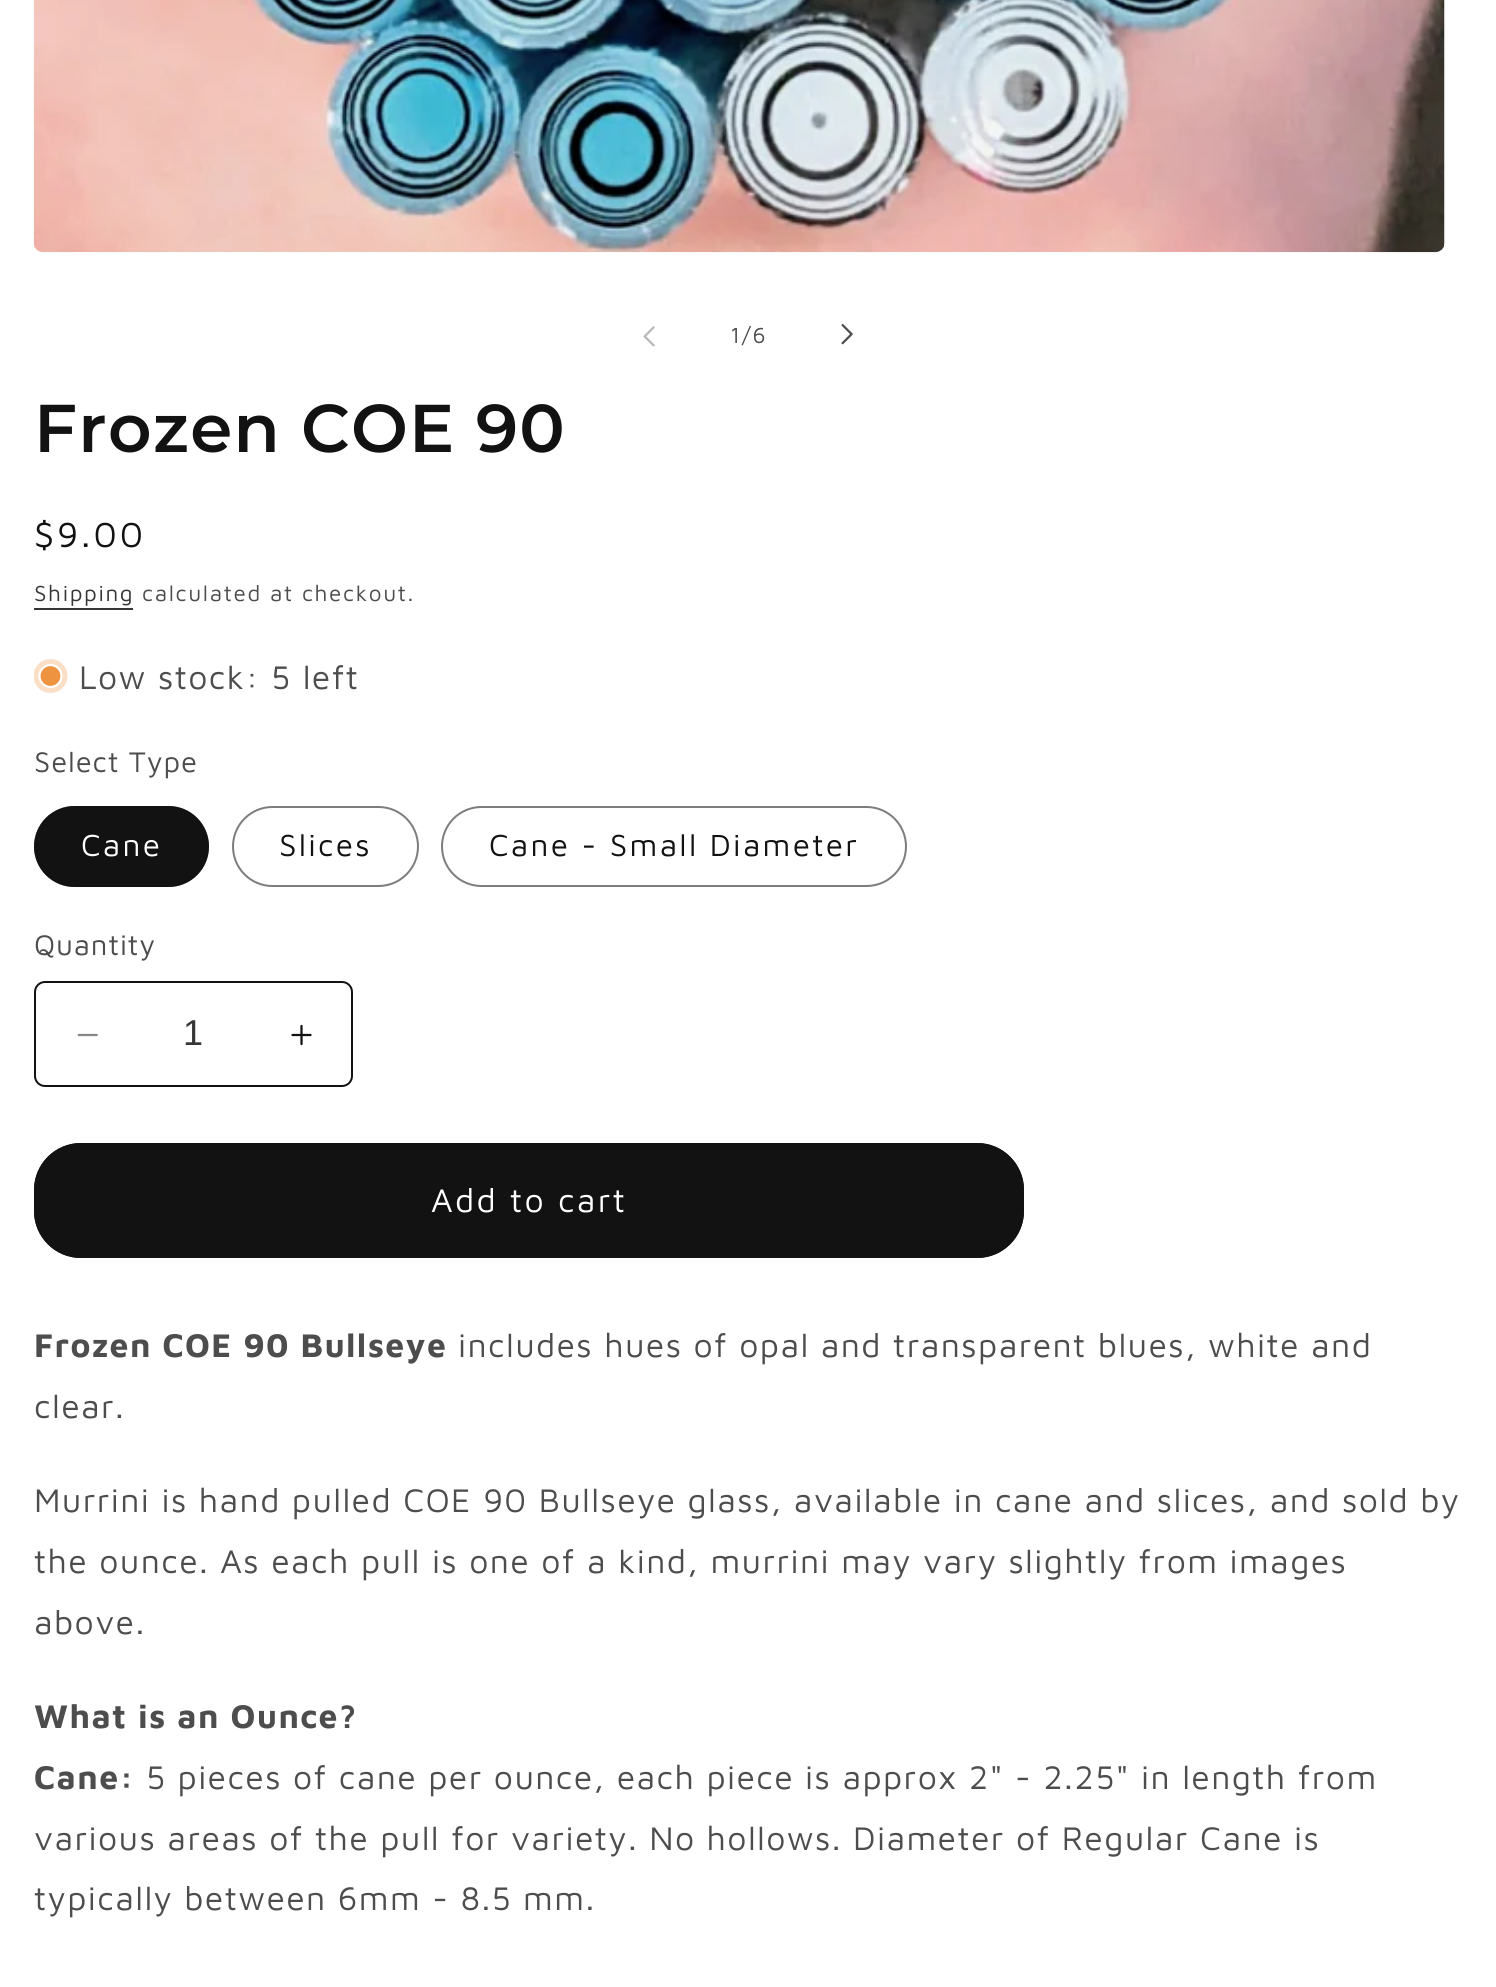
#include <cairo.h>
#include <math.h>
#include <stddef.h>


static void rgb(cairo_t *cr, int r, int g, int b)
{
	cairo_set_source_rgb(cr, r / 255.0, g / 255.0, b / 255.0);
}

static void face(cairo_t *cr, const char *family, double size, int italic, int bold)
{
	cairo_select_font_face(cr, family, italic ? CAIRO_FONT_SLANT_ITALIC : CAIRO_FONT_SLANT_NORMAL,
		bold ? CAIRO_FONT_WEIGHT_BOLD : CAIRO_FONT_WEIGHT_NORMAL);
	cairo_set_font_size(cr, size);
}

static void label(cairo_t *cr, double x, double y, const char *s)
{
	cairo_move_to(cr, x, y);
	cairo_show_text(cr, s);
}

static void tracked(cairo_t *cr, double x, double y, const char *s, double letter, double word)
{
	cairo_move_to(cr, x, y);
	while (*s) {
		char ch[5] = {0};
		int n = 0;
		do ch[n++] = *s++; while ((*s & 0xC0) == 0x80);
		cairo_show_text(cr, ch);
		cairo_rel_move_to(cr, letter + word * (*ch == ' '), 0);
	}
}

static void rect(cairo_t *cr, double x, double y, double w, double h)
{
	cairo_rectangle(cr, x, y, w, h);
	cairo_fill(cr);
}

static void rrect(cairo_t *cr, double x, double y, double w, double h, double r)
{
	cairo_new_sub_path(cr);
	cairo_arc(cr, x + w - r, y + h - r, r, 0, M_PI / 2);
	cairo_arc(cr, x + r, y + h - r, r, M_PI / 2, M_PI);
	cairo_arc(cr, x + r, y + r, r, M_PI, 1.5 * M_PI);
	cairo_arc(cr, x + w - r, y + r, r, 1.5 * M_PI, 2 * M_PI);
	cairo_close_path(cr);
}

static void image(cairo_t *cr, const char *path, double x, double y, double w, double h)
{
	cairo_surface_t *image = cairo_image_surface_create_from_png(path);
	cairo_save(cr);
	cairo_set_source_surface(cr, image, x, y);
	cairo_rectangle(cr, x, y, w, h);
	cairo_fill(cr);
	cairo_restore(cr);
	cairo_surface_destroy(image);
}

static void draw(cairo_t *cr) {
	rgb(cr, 255, 255, 255);
	cairo_paint(cr);
	image(cr, "image0.png", 33, 0, 1412, 253);
	image(cr, "image1.png", 643, 326, 12, 21);
	face(cr, "Maven Pro", 22.5, 0, 0);
	rgb(cr, 77, 77, 77);
	tracked(cr, 730, 343, "1/6", 1.6, 0);
	image(cr, "image2.png", 841, 324, 12, 21);
	face(cr, "Montserrat SemiBold", 67.5, 0, 0);
	rgb(cr, 18, 18, 18);
	tracked(cr, 34, 452, "Frozen COE 90", 1.35, 0);
	face(cr, "Maven Pro", 36, 0, 0);
	tracked(cr, 34, 547, "$9.00", 3, 0);
	face(cr, "Maven Pro", 22.5, 0, 0);
	rgb(cr, 54, 54, 54);
	tracked(cr, 34, 601, "Shipping", 1.6, 0);
	rect(cr, 34, 608, 99, 2);
	rgb(cr, 77, 77, 77);
	tracked(cr, 142, 601, "calculated at checkout.", 1.6, 0);
	cairo_save(cr);
	cairo_rectangle(cr, 34, 659, 34, 34);
	cairo_clip(cr);
	rgb(cr, 250, 223, 198);
	cairo_arc(cr, 50.5, 676, 17, 0, 2 * M_PI);
	cairo_fill(cr);
	cairo_restore(cr);
	rgb(cr, 238, 148, 65);
	cairo_arc(cr, 50.5, 676, 11, 0, 2 * M_PI);
	cairo_fill_preserve(cr);
	rgb(cr, 255, 255, 255);
	cairo_set_line_width(cr, 2.2);
	cairo_stroke(cr);
	face(cr, "Maven Pro", 33.75, 0, 0);
	rgb(cr, 77, 77, 77);
	tracked(cr, 79, 689, "Low stock: 5 left", 1.35, 0);
	face(cr, "Maven Pro", 29.25, 0, 0);
	tracked(cr, 34, 772, "Select Type", 0.9, 0);
	rgb(cr, 18, 18, 18);
	rrect(cr, 34, 806, 175, 81, 40.5);
	cairo_fill(cr);
	rrect(cr, 35, 807, 173, 79, 39.5);
	cairo_set_source_rgba(cr, 0.071, 0.071, 0.071, 0.55);
	cairo_set_line_width(cr, 2);
	cairo_stroke(cr);
	face(cr, "Maven Pro", 31.5, 0, 0);
	rgb(cr, 255, 255, 255);
	tracked(cr, 81, 856, "Cane", 2.25, 0);
	rrect(cr, 233, 807, 185, 79, 39.5);
	rgb(cr, 125, 125, 125);
	cairo_stroke(cr);
	rgb(cr, 18, 18, 18);
	tracked(cr, 279, 856, "Slices", 2.25, 0);
	rrect(cr, 442, 807, 464, 79, 39.5);
	rgb(cr, 125, 125, 125);
	cairo_stroke(cr);
	rgb(cr, 18, 18, 18);
	tracked(cr, 489, 856, "Cane - Small Diameter", 2.25, 0);
	face(cr, "Maven Pro", 29.25, 0, 0);
	rgb(cr, 77, 77, 77);
	tracked(cr, 34, 955, "Quantity", 0.9, 0);
	image(cr, "image3.png", 77, 1033, 21, 4);
	image(cr, "image4.png", 291, 1024, 21, 22);
	rrect(cr, 35, 982, 317, 104, 10);
	rgb(cr, 18, 18, 18);
	cairo_stroke(cr);
	face(cr, "Liberation Sans", 36, 0, 0);
	rgb(cr, 54, 54, 54);
	label(cr, 183, 1045, "1");
	rgb(cr, 18, 18, 18);
	rrect(cr, 34, 1143, 990, 115, 47);
	cairo_fill(cr);
	rrect(cr, 37.5, 1146.5, 983, 108, 43.5);
	cairo_set_line_width(cr, 7);
	cairo_stroke(cr);
	face(cr, "Maven Pro", 33.75, 0, 0);
	rgb(cr, 255, 255, 255);
	tracked(cr, 431, 1212, "Add to cart", 2.25, 0);
	face(cr, "Maven Pro", 33.75, 0, 1);
	rgb(cr, 77, 77, 77);
	tracked(cr, 34, 1357, "Frozen COE 90 Bullseye", 1.35, 0);
	face(cr, "Maven Pro", 33.75, 0, 0);
	tracked(cr, 458, 1357, "includes hues of opal and transparent blues, white and", 1.35, 0);
	tracked(cr, 34, 1418, "clear.", 1.35, 0);
	tracked(cr, 34, 1512, "Murrini is hand pulled COE 90 Bullseye glass, available in cane and slices, and sold by", 1.35, 0);
	tracked(cr, 34, 1573, "the ounce. As each pull is one of a kind, murrini may vary slightly from images", 1.35, 0);
	tracked(cr, 34, 1634, "above.", 1.35, 0);
	face(cr, "Maven Pro", 33.75, 0, 1);
	tracked(cr, 34, 1728, "What is an Ounce?", 1.35, 0);
	tracked(cr, 34, 1789, "Cane:", 1.35, 0);
	face(cr, "Maven Pro", 33.75, 0, 0);
	tracked(cr, 146, 1789, "5 pieces of cane per ounce, each piece is approx 2\" - 2.25\" in length from", 1.35, 0);
	tracked(cr, 34, 1850, "various areas of the pull for variety. No hollows. Diameter of Regular Cane is", 1.35, 0);
	tracked(cr, 34, 1910, "typically between 6mm - 8.5 mm.", 1.35, 0);
}

int main(void) {
	cairo_surface_t *surface = cairo_image_surface_create(CAIRO_FORMAT_RGB24, 1496, 1987);
	cairo_t *cr = cairo_create(surface);
	cairo_font_options_t *options = cairo_font_options_create();
	cairo_font_options_set_hint_metrics(options, CAIRO_HINT_METRICS_OFF);
	cairo_font_options_set_hint_style(options, CAIRO_HINT_STYLE_NONE);
	cairo_set_font_options(cr, options);
	cairo_set_miter_limit(cr, 4);
	draw(cr);
	cairo_surface_write_to_png(surface, "render.png");
	cairo_font_options_destroy(options);
	cairo_destroy(cr);
	cairo_surface_destroy(surface);
	return 0;
}
